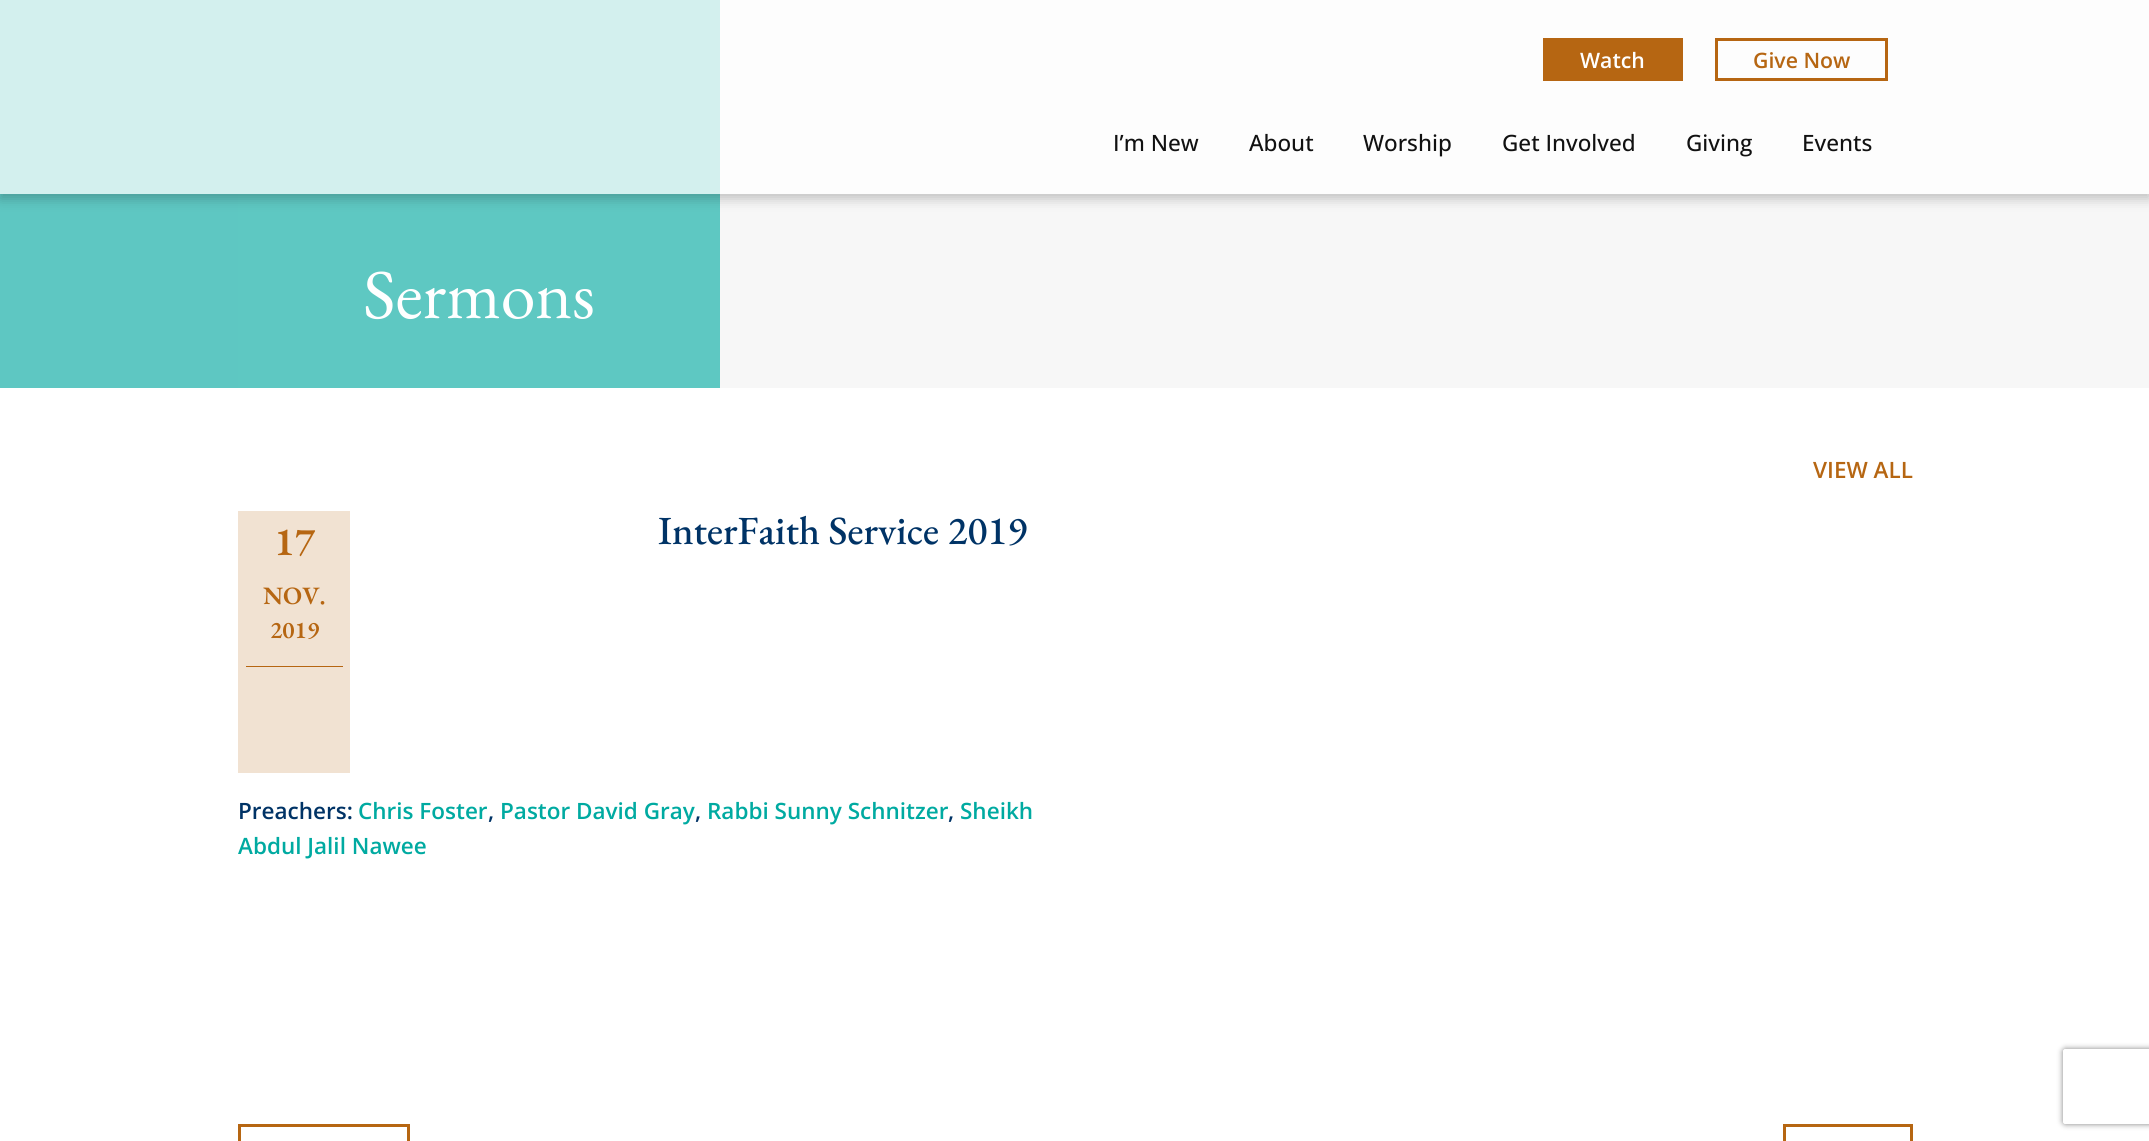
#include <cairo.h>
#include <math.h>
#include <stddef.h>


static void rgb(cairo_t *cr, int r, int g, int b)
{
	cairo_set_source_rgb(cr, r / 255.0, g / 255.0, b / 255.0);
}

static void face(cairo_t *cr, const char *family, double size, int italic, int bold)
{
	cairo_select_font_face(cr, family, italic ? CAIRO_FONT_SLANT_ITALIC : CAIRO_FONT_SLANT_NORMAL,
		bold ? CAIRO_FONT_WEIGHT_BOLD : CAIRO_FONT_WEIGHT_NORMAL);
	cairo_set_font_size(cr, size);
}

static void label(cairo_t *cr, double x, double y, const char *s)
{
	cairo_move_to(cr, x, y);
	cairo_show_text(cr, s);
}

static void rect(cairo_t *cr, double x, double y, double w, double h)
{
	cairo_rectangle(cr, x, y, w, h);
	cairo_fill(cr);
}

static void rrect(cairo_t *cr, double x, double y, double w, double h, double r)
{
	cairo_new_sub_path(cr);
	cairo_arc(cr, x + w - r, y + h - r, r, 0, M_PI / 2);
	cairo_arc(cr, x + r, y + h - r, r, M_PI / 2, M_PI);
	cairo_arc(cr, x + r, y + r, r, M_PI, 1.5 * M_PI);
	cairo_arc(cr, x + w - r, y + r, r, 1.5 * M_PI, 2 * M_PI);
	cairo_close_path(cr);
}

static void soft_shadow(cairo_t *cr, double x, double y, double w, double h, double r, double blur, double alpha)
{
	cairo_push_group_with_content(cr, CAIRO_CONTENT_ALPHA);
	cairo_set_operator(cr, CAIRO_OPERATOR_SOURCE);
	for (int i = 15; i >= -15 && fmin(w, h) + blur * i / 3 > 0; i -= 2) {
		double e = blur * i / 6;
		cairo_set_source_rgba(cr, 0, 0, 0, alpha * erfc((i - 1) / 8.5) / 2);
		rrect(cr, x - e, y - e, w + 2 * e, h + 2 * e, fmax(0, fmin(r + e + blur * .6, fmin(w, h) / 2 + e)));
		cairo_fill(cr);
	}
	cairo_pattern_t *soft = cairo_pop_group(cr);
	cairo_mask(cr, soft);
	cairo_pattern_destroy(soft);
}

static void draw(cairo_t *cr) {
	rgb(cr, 255, 255, 255);
	cairo_paint(cr);
	rgb(cr, 247, 247, 247);
	rect(cr, 720, 0, 1429, 388);
	rgb(cr, 94, 199, 194);
	cairo_new_path(cr);
	cairo_move_to(cr, -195, -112);
	cairo_line_to(cr, -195, 388);
	cairo_line_to(cr, 288, 388);
	cairo_line_to(cr, 238, 388);
	cairo_line_to(cr, 238, -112);
	cairo_close_path(cr);
	cairo_fill(cr);
	rgb(cr, 94, 200, 194);
	rect(cr, 238, 0, 482, 388);
	cairo_save(cr);
	cairo_set_fill_rule(cr, CAIRO_FILL_RULE_EVEN_ODD);
	cairo_new_path(cr);
	cairo_move_to(cr, 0, 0);
	cairo_line_to(cr, 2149, 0);
	cairo_line_to(cr, 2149, 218);
	cairo_line_to(cr, 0, 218);
	cairo_close_path(cr);
	cairo_move_to(cr, 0, 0);
	cairo_line_to(cr, 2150, 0);
	cairo_line_to(cr, 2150, 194);
	cairo_line_to(cr, 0, 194);
	cairo_close_path(cr);
	cairo_clip(cr);
	rgb(cr, 0, 0, 0);
	soft_shadow(cr, 0, 5, 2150, 194, 0, 6, 0.22);
	cairo_restore(cr);
	cairo_set_source_rgba(cr, 1, 1, 1, 0.73);
	rect(cr, 0, 0, 2149, 194);
	rgb(cr, 182, 102, 18);
	rect(cr, 1543, 38, 140, 43);
	face(cr, "Open Sans SemiBold", 21.25, 0, 0);
	rgb(cr, 255, 255, 255);
	label(cr, 1580, 68, "Watch");
	cairo_rectangle(cr, 1716.5, 39.5, 170, 40);
	rgb(cr, 182, 102, 18);
	cairo_set_line_width(cr, 3);
	cairo_stroke(cr);
	label(cr, 1753, 68, "Give Now");
	face(cr, "Open Sans Medium", 22.5, 0, 0);
	rgb(cr, 17, 17, 17);
	label(cr, 1113, 151, "I’m New");
	label(cr, 1249, 151, "About");
	label(cr, 1363, 151, "Worship");
	label(cr, 1502, 151, "Get Involved");
	label(cr, 1686, 151, "Giving");
	label(cr, 1802, 151, "Events");
	face(cr, "EB Garamond", 70, 0, 0);
	rgb(cr, 255, 255, 255);
	label(cr, 363, 318, "Sermons");
	face(cr, "Open Sans SemiBold", 22.5, 0, 0);
	rgb(cr, 182, 102, 18);
	label(cr, 1813, 478, "VIEW ALL");
	rgb(cr, 241, 226, 210);
	rect(cr, 238, 511, 112, 262);
	face(cr, "EB Garamond SemiBold", 40, 0, 0);
	rgb(cr, 182, 102, 18);
	label(cr, 274, 555, "17");
	face(cr, "EB Garamond SemiBold", 25, 0, 0);
	label(cr, 263, 604, "NOV.");
	face(cr, "EB Garamond SemiBold", 24, 0, 0);
	label(cr, 270, 638, "2019");
	rect(cr, 246, 666, 97, 1);
	face(cr, "EB Garamond Medium", 40, 0, 0);
	rgb(cr, 0, 51, 102);
	label(cr, 658, 544, "InterFaith Service 2019");
	face(cr, "Open Sans SemiBold", 22.5, 0, 0);
	label(cr, 238, 819, "Preachers:");
	rgb(cr, 0, 170, 161);
	label(cr, 358, 819, "Chris Foster");
	rgb(cr, 0, 51, 102);
	label(cr, 488, 819, ",");
	rgb(cr, 0, 170, 161);
	label(cr, 500, 819, "Pastor David Gray");
	rgb(cr, 0, 51, 102);
	label(cr, 695, 819, ",");
	rgb(cr, 0, 170, 161);
	label(cr, 707, 819, "Rabbi Sunny Schnitzer");
	rgb(cr, 0, 51, 102);
	label(cr, 948, 819, ",");
	rgb(cr, 0, 170, 161);
	label(cr, 960, 819, "Sheikh");
	label(cr, 238, 854, "Abdul Jalil Nawee");
	cairo_rectangle(cr, 239.5, 1125.5, 169, 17);
	rgb(cr, 182, 102, 18);
	cairo_stroke(cr);
	cairo_rectangle(cr, 1784.5, 1125.5, 127, 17);
	cairo_stroke(cr);
	cairo_save(cr);
	cairo_set_fill_rule(cr, CAIRO_FILL_RULE_EVEN_ODD);
	cairo_new_path(cr);
	cairo_move_to(cr, 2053, 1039);
	cairo_line_to(cr, 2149, 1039);
	cairo_line_to(cr, 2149, 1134);
	cairo_line_to(cr, 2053, 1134);
	cairo_close_path(cr);
	cairo_move_to(cr, 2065.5, 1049);
	cairo_line_to(cr, 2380.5, 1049);
	cairo_curve_to(cr, 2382, 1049, 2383, 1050, 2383, 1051.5);
	cairo_line_to(cr, 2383, 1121.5);
	cairo_curve_to(cr, 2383, 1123, 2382, 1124, 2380.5, 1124);
	cairo_line_to(cr, 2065.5, 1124);
	cairo_curve_to(cr, 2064, 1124, 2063, 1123, 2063, 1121.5);
	cairo_line_to(cr, 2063, 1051.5);
	cairo_curve_to(cr, 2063, 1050, 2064, 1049, 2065.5, 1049);
	cairo_close_path(cr);
	cairo_clip(cr);
	rgb(cr, 128, 128, 128);
	soft_shadow(cr, 2063, 1049, 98, 75, 2.5, 3, 1);
	cairo_restore(cr);
}

int main(void) {
	cairo_surface_t *surface = cairo_image_surface_create(CAIRO_FORMAT_RGB24, 2149, 1141);
	cairo_t *cr = cairo_create(surface);
	cairo_font_options_t *options = cairo_font_options_create();
	cairo_font_options_set_hint_metrics(options, CAIRO_HINT_METRICS_OFF);
	cairo_font_options_set_hint_style(options, CAIRO_HINT_STYLE_NONE);
	cairo_set_font_options(cr, options);
	cairo_set_miter_limit(cr, 4);
	draw(cr);
	cairo_surface_write_to_png(surface, "render.png");
	cairo_font_options_destroy(options);
	cairo_destroy(cr);
	cairo_surface_destroy(surface);
	return 0;
}
